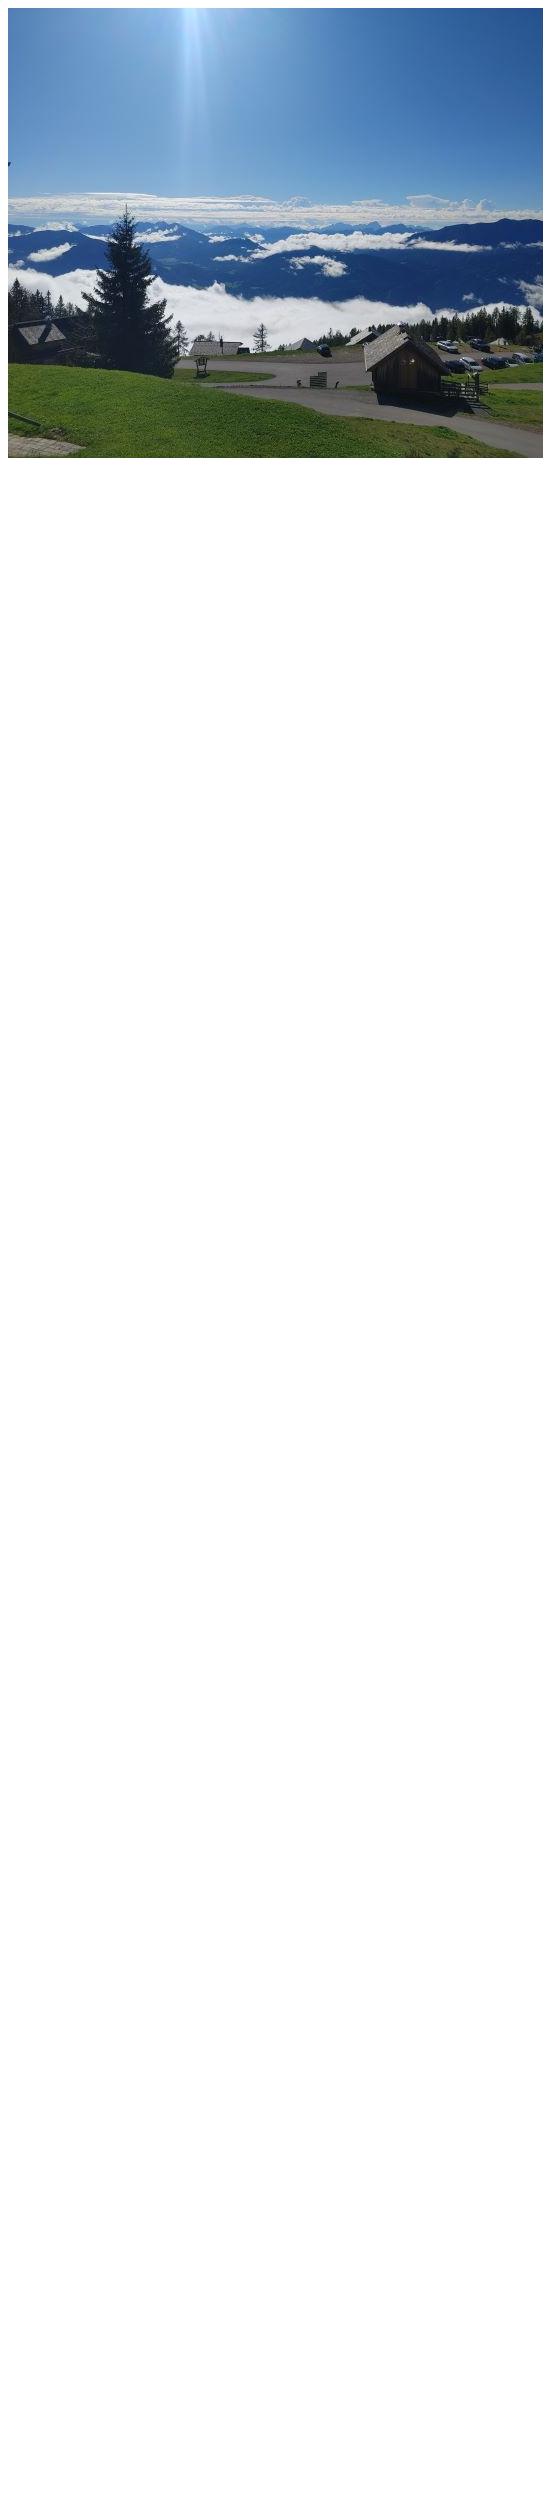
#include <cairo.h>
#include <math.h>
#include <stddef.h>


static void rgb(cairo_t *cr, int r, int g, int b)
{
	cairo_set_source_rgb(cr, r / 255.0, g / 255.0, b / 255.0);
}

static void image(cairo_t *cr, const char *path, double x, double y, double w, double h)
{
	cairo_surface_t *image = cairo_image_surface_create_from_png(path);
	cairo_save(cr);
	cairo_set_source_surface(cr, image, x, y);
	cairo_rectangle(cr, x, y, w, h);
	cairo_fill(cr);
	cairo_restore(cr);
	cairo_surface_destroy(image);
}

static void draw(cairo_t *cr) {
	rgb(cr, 255, 255, 255);
	cairo_paint(cr);
	image(cr, "image0.png", 8, 8, 535, 450);
}

int main(void) {
	cairo_surface_t *surface = cairo_image_surface_create(CAIRO_FORMAT_RGB24, 543, 2517);
	cairo_t *cr = cairo_create(surface);
	cairo_font_options_t *options = cairo_font_options_create();
	cairo_font_options_set_hint_metrics(options, CAIRO_HINT_METRICS_OFF);
	cairo_font_options_set_hint_style(options, CAIRO_HINT_STYLE_NONE);
	cairo_set_font_options(cr, options);
	cairo_set_miter_limit(cr, 4);
	draw(cr);
	cairo_surface_write_to_png(surface, "render.png");
	cairo_font_options_destroy(options);
	cairo_destroy(cr);
	cairo_surface_destroy(surface);
	return 0;
}
